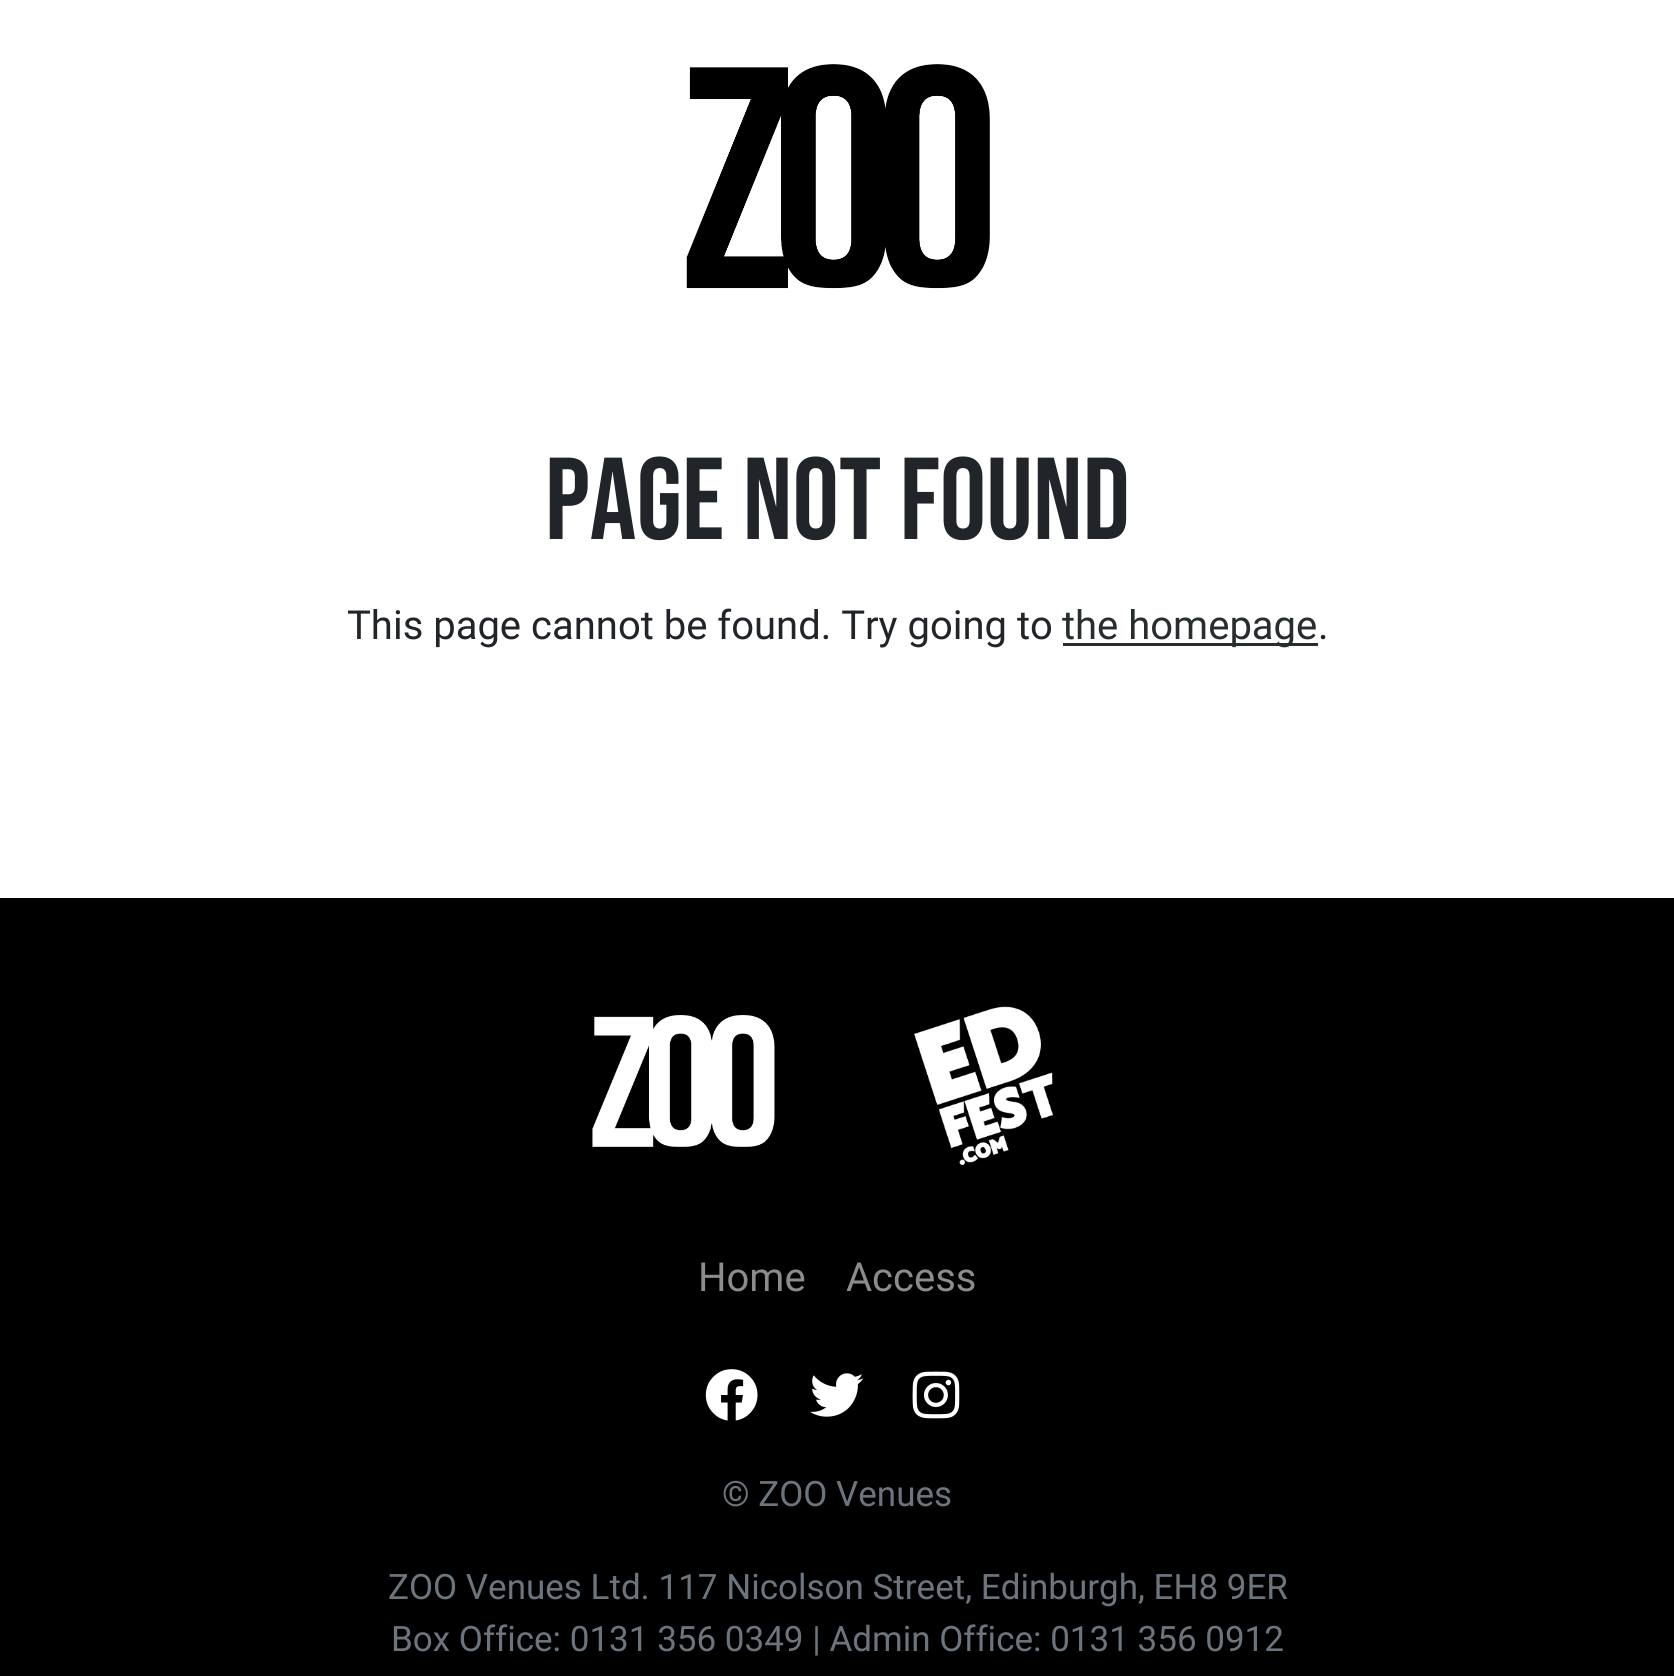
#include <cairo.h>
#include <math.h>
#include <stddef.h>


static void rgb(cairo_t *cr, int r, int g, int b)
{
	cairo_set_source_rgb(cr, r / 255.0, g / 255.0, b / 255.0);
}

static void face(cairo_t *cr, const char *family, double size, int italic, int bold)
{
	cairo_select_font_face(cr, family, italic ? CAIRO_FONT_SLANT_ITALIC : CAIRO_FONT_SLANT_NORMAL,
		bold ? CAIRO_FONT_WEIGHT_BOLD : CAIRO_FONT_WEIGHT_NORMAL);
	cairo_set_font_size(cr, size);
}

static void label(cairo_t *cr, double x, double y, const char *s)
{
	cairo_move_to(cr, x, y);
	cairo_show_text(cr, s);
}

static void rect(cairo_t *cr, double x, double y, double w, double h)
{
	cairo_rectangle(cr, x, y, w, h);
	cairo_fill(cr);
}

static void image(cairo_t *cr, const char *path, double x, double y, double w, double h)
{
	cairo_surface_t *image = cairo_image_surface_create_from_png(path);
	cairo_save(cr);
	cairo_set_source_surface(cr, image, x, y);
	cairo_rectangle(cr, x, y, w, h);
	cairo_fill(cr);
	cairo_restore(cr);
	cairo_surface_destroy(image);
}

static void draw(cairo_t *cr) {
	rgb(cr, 255, 255, 255);
	cairo_paint(cr);
	image(cr, "image0.png", 686, 64, 304, 225);
	face(cr, "Bebas Neue", 116.25, 0, 0);
	rgb(cr, 33, 37, 41);
	label(cr, 545, 539, "Page not found");
	face(cr, "Roboto", 40, 0, 0);
	label(cr, 347, 639, "This page cannot be found. Try going to");
	rgb(cr, 40, 45, 48);
	rect(cr, 1063, 643, 255, 3);
	label(cr, 1062, 639, "the homepage");
	rgb(cr, 33, 37, 41);
	label(cr, 1318, 639, ".");
	rgb(cr, 0, 0, 0);
	rect(cr, 0, 898, 1674, 778);
	image(cr, "image1.png", 592, 1015, 183, 132);
	image(cr, "image2.png", 914, 1006, 140, 159);
	rgb(cr, 140, 140, 140);
	label(cr, 698, 1291, "Home");
	label(cr, 846, 1291, "Access");
	image(cr, "image3.png", 705, 1369, 53, 52);
	image(cr, "image4.png", 810, 1373, 54, 44);
	image(cr, "image5.png", 912, 1371, 48, 48);
	face(cr, "Roboto", 35, 0, 0);
	rgb(cr, 108, 117, 125);
	label(cr, 722, 1506, "© ZOO Venues");
	label(cr, 388, 1599, "ZOO Venues Ltd. 117 Nicolson Street, Edinburgh, EH8 9ER");
	label(cr, 391, 1651, "Box Office: 0131 356 0349 | Admin Office: 0131 356 0912");
}

int main(void) {
	cairo_surface_t *surface = cairo_image_surface_create(CAIRO_FORMAT_RGB24, 1674, 1676);
	cairo_t *cr = cairo_create(surface);
	cairo_font_options_t *options = cairo_font_options_create();
	cairo_font_options_set_hint_metrics(options, CAIRO_HINT_METRICS_OFF);
	cairo_font_options_set_hint_style(options, CAIRO_HINT_STYLE_NONE);
	cairo_set_font_options(cr, options);
	cairo_set_miter_limit(cr, 4);
	draw(cr);
	cairo_surface_write_to_png(surface, "render.png");
	cairo_font_options_destroy(options);
	cairo_destroy(cr);
	cairo_surface_destroy(surface);
	return 0;
}
